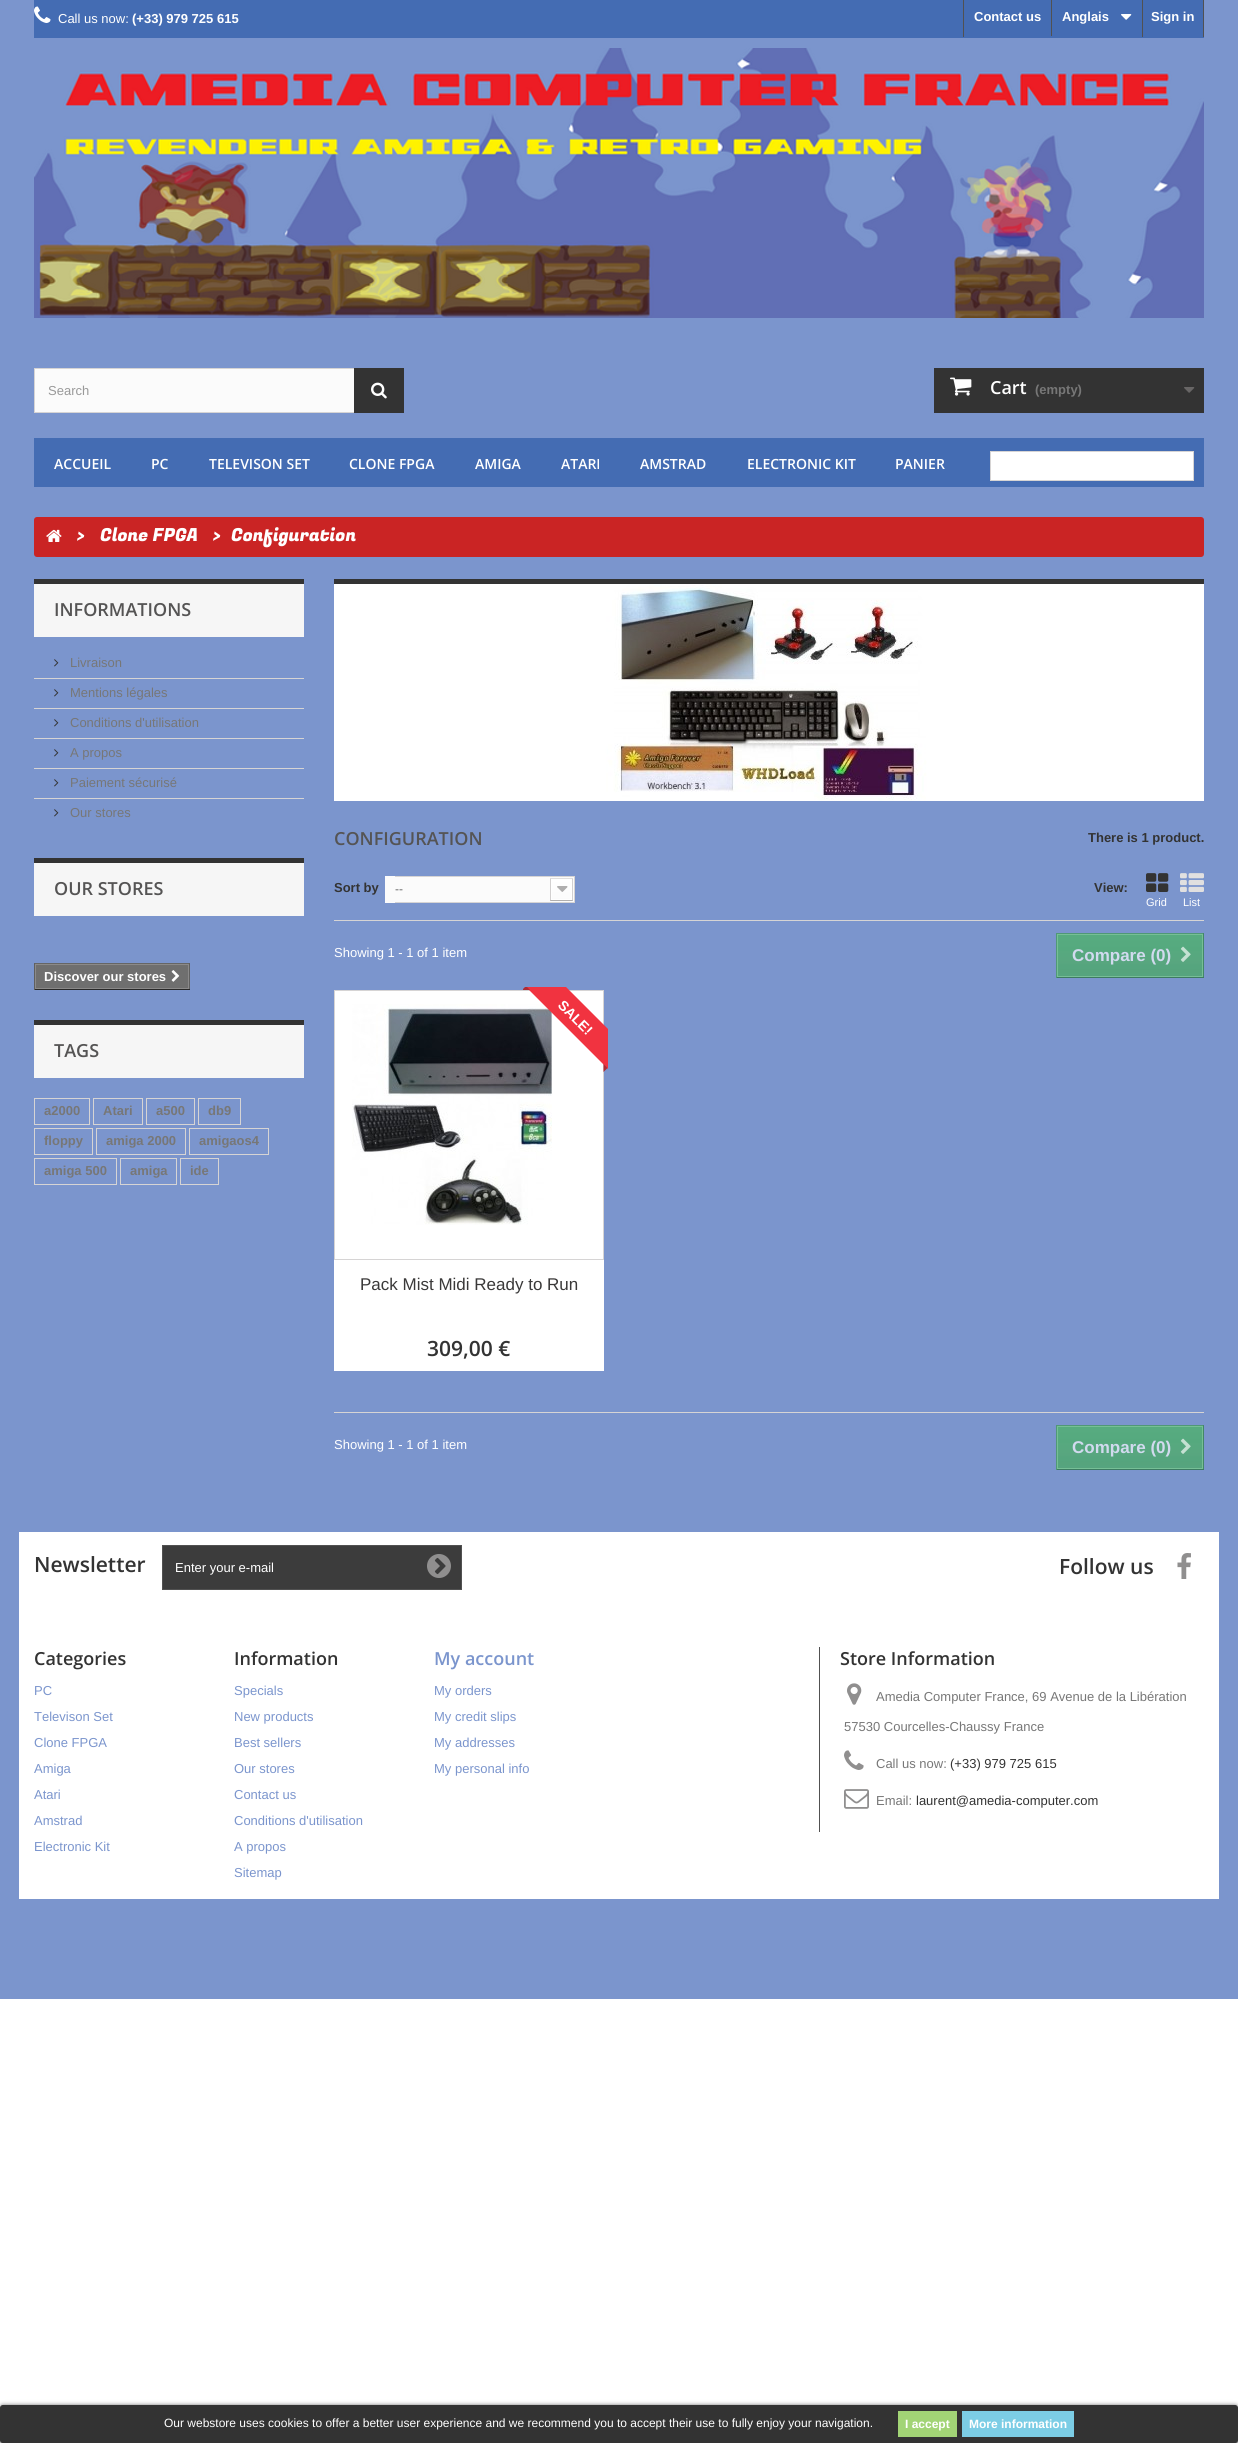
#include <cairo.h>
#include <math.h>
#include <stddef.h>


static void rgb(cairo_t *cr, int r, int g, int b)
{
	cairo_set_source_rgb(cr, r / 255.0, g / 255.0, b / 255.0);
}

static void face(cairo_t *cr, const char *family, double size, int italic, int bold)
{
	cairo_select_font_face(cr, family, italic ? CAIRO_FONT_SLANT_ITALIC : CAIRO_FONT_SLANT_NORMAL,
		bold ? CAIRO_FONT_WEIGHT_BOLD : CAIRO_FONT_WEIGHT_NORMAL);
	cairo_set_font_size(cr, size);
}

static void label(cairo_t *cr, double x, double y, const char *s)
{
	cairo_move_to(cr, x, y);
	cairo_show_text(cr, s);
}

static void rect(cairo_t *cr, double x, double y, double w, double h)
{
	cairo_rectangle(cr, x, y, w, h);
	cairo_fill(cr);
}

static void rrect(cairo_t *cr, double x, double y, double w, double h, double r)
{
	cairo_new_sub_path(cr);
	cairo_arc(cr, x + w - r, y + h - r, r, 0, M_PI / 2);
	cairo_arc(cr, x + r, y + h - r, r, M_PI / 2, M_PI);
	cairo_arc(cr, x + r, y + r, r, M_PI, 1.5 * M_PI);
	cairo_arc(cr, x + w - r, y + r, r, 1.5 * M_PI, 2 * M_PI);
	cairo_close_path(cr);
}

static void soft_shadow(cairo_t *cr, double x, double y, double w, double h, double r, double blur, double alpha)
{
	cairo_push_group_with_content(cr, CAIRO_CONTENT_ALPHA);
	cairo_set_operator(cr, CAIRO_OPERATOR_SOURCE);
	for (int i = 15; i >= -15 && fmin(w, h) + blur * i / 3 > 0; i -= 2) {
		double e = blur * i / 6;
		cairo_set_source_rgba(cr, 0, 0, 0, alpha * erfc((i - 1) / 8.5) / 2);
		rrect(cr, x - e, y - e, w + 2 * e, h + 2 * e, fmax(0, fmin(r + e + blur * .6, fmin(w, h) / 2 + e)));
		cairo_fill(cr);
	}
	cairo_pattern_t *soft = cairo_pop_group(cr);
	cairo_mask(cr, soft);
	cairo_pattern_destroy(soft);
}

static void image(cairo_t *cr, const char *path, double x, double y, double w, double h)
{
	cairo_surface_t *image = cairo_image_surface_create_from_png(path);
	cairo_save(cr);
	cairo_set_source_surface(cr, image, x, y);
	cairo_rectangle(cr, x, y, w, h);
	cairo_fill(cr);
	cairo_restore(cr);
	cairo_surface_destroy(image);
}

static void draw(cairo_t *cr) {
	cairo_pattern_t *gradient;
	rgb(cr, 255, 255, 255);
	cairo_paint(cr);
	rgb(cr, 123, 149, 205);
	rect(cr, 0, 0, 1238, 1999);
	rgb(cr, 68, 108, 179);
	rect(cr, 34, 0, 1170, 38);
	image(cr, "image0.png", 34, 6, 17, 17);
	face(cr, "Liberation Sans", 13, 0, 0);
	rgb(cr, 255, 255, 255);
	label(cr, 58, 23, "Call us now:");
	face(cr, "Liberation Sans", 13, 0, 1);
	label(cr, 132, 23, "(+33) 979 725 615");
	rgb(cr, 81, 81, 81);
	rect(cr, 963, 0, 1, 37);
	rgb(cr, 255, 255, 255);
	label(cr, 974, 21, "Contact us");
	rgb(cr, 81, 81, 81);
	rect(cr, 1051, 0, 1, 36);
	rgb(cr, 255, 255, 255);
	label(cr, 1062, 21, "Anglais");
	image(cr, "image1.png", 1121, 14, 11, 6);
	rgb(cr, 81, 81, 81);
	rect(cr, 1203, 0, 1, 37);
	rect(cr, 1142, 0, 1, 37);
	rgb(cr, 255, 255, 255);
	label(cr, 1151, 21, "Sign in");
	image(cr, "image2.png", 34, 48, 1170, 270);
	rgb(cr, 251, 251, 251);
	rect(cr, 35, 369, 319, 43);
	cairo_rectangle(cr, 34.5, 368.5, 369, 44);
	rgb(cr, 214, 212, 212);
	cairo_set_line_width(cr, 1);
	cairo_stroke(cr);
	face(cr, "Liberation Sans", 13, 0, 0);
	rgb(cr, 153, 153, 153);
	label(cr, 48, 395, "Search");
	rgb(cr, 51, 51, 51);
	rect(cr, 354, 368, 50, 45);
	image(cr, "image3.png", 371, 382, 16, 17);
	rect(cr, 934, 368, 270, 45);
	image(cr, "image4.png", 950, 377, 22, 19);
	face(cr, "Open Sans SemiBold", 18, 0, 0);
	rgb(cr, 255, 255, 255);
	label(cr, 990, 394, "Cart");
	face(cr, "Liberation Sans", 13, 0, 1);
	rgb(cr, 119, 119, 119);
	label(cr, 1035, 394, "(empty)");
	image(cr, "image5.png", 1184, 387, 11, 6);
	rgb(cr, 68, 108, 179);
	rect(cr, 34, 438, 1170, 49);
	face(cr, "Open Sans SemiBold", 14, 0, 0);
	rgb(cr, 255, 255, 255);
	label(cr, 54, 469, "ACCUEIL");
	label(cr, 151, 469, "PC");
	label(cr, 209, 469, "TELEVISON SET");
	label(cr, 349, 469, "CLONE FPGA");
	label(cr, 475, 469, "AMIGA");
	label(cr, 561, 469, "ATARI");
	label(cr, 640, 469, "AMSTRAD");
	label(cr, 747, 469, "ELECTRONIC KIT");
	label(cr, 895, 469, "PANIER");
	cairo_rectangle(cr, 990.5, 451.5, 203, 29);
	cairo_fill_preserve(cr);
	rgb(cr, 214, 212, 212);
	cairo_stroke(cr);
	rgb(cr, 51, 51, 51);
	soft_shadow(cr, 0, 2406, 1238, 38, 3, 2.5, 1);
	rgb(cr, 51, 51, 51);
	rrect(cr, 0.5, 2405.5, 1237, 37, 2.5);
	cairo_fill_preserve(cr);
	cairo_stroke(cr);
	face(cr, "Liberation Sans", 12, 0, 0);
	rgb(cr, 255, 255, 255);
	label(cr, 164, 2427, "Our webstore uses cookies to offer a better user experience and we recommend you to accept their use to fully enjoy your navigation.");
	rgb(cr, 162, 212, 118);
	rect(cr, 898, 2411, 59, 26);
	face(cr, "Liberation Sans", 12, 0, 1);
	rgb(cr, 255, 255, 255);
	label(cr, 905, 2428, "I accept");
	rgb(cr, 124, 205, 229);
	rect(cr, 962, 2411, 112, 26);
	rgb(cr, 255, 255, 255);
	label(cr, 969, 2428, "More information");
	rgb(cr, 202, 36, 36);
	rrect(cr, 34, 517, 1170, 40, 3);
	cairo_fill(cr);
	image(cr, "image6.png", 46, 529, 16, 13);
	face(cr, "Fugaz One", 18, 0, 0);
	rgb(cr, 255, 255, 255);
	label(cr, 77, 541, ">");
	label(cr, 213, 541, ">");
	rgb(cr, 202, 36, 36);
	rect(cr, 212, 539, 1, 2);
	rgb(cr, 255, 255, 255);
	label(cr, 100, 541, "Clone FPGA");
	label(cr, 231, 541, "Configuration");
	rgb(cr, 246, 246, 246);
	rect(cr, 34, 584, 270, 53);
	rgb(cr, 51, 51, 51);
	rect(cr, 34, 579, 270, 5);
	face(cr, "Open Sans SemiBold", 18, 0, 0);
	rgb(cr, 85, 84, 84);
	label(cr, 54, 616, "INFORMATIONS");
	image(cr, "image7.png", 54, 659, 5, 8);
	face(cr, "Liberation Sans", 13, 0, 0);
	rgb(cr, 119, 119, 119);
	label(cr, 70, 667, "Livraison");
	rgb(cr, 214, 212, 212);
	rect(cr, 34, 678, 270, 1);
	image(cr, "image7.png", 54, 689, 5, 8);
	rgb(cr, 119, 119, 119);
	label(cr, 70, 697, "Mentions légales");
	rgb(cr, 214, 212, 212);
	rect(cr, 34, 708, 270, 1);
	image(cr, "image7.png", 54, 719, 5, 8);
	rgb(cr, 119, 119, 119);
	label(cr, 70, 727, "Conditions d'utilisation");
	rgb(cr, 214, 212, 212);
	rect(cr, 34, 738, 270, 1);
	image(cr, "image7.png", 54, 749, 5, 8);
	rgb(cr, 119, 119, 119);
	label(cr, 70, 757, "A propos");
	rgb(cr, 214, 212, 212);
	rect(cr, 34, 768, 270, 1);
	image(cr, "image7.png", 54, 779, 5, 8);
	rgb(cr, 119, 119, 119);
	label(cr, 70, 787, "Paiement sécurisé");
	rgb(cr, 214, 212, 212);
	rect(cr, 34, 798, 270, 1);
	image(cr, "image7.png", 54, 809, 5, 8);
	rgb(cr, 119, 119, 119);
	label(cr, 70, 817, "Our stores");
	rgb(cr, 246, 246, 246);
	rect(cr, 34, 863, 270, 53);
	rgb(cr, 51, 51, 51);
	rect(cr, 34, 858, 270, 5);
	face(cr, "Open Sans SemiBold", 18, 0, 0);
	rgb(cr, 85, 84, 84);
	label(cr, 54, 895, "OUR STORES");
	rgb(cr, 102, 102, 102);
	rect(cr, 34, 963, 156, 1);
	rgb(cr, 95, 95, 95);
	rect(cr, 189, 963, 1, 27);
	rgb(cr, 41, 41, 41);
	rect(cr, 34, 989, 156, 1);
	rgb(cr, 95, 95, 95);
	rect(cr, 34, 963, 1, 27);
	rgb(cr, 111, 111, 111);
	cairo_rectangle(cr, 35.5, 964.5, 153, 24);
	cairo_fill_preserve(cr);
	rgb(cr, 139, 138, 138);
	cairo_stroke(cr);
	face(cr, "Liberation Sans", 13, 0, 1);
	rgb(cr, 255, 255, 255);
	label(cr, 44, 981, "Discover our stores");
	image(cr, "image8.png", 171, 970, 9, 12);
	rgb(cr, 246, 246, 246);
	rect(cr, 34, 1025, 270, 53);
	rgb(cr, 51, 51, 51);
	rect(cr, 34, 1020, 270, 5);
	face(cr, "Open Sans SemiBold", 18, 0, 0);
	rgb(cr, 85, 84, 84);
	label(cr, 54, 1057, "TAGS");
	cairo_rectangle(cr, 34.5, 1098.5, 55, 26);
	rgb(cr, 214, 212, 212);
	cairo_stroke(cr);
	face(cr, "Liberation Sans", 13, 0, 1);
	rgb(cr, 119, 119, 119);
	label(cr, 44, 1115, "a2000");
	cairo_rectangle(cr, 93.5, 1098.5, 49, 26);
	rgb(cr, 214, 212, 212);
	cairo_stroke(cr);
	rgb(cr, 119, 119, 119);
	label(cr, 103, 1115, "Atari");
	cairo_rectangle(cr, 146.5, 1098.5, 48, 26);
	rgb(cr, 214, 212, 212);
	cairo_stroke(cr);
	rgb(cr, 119, 119, 119);
	label(cr, 156, 1115, "a500");
	cairo_rectangle(cr, 198.5, 1098.5, 42, 26);
	rgb(cr, 214, 212, 212);
	cairo_stroke(cr);
	rgb(cr, 119, 119, 119);
	label(cr, 208, 1115, "db9");
	cairo_rectangle(cr, 34.5, 1128.5, 58, 26);
	rgb(cr, 214, 212, 212);
	cairo_stroke(cr);
	rgb(cr, 119, 119, 119);
	label(cr, 44, 1145, "floppy");
	cairo_rectangle(cr, 96.5, 1128.5, 89, 26);
	rgb(cr, 214, 212, 212);
	cairo_stroke(cr);
	rgb(cr, 119, 119, 119);
	label(cr, 106, 1145, "amiga 2000");
	cairo_rectangle(cr, 189.5, 1128.5, 79, 26);
	rgb(cr, 214, 212, 212);
	cairo_stroke(cr);
	rgb(cr, 119, 119, 119);
	label(cr, 199, 1145, "amigaos4");
	cairo_rectangle(cr, 34.5, 1158.5, 82, 26);
	rgb(cr, 214, 212, 212);
	cairo_stroke(cr);
	rgb(cr, 119, 119, 119);
	label(cr, 44, 1175, "amiga 500");
	cairo_rectangle(cr, 120.5, 1158.5, 56, 26);
	rgb(cr, 214, 212, 212);
	cairo_stroke(cr);
	rgb(cr, 119, 119, 119);
	label(cr, 130, 1175, "amiga");
	cairo_rectangle(cr, 180.5, 1158.5, 38, 26);
	rgb(cr, 214, 212, 212);
	cairo_stroke(cr);
	rgb(cr, 119, 119, 119);
	label(cr, 190, 1175, "ide");
	rgb(cr, 51, 51, 51);
	rect(cr, 334, 579, 870, 5);
	image(cr, "image9.png", 334, 584, 870, 217);
	face(cr, "Open Sans SemiBold", 18, 0, 0);
	rgb(cr, 85, 84, 84);
	label(cr, 334, 845, "CONFIGURATION");
	face(cr, "Liberation Sans", 13, 0, 1);
	rgb(cr, 51, 51, 51);
	label(cr, 1088, 842, "There is 1 product.");
	rgb(cr, 214, 212, 212);
	rect(cr, 334, 920, 870, 1);
	rgb(cr, 51, 51, 51);
	label(cr, 334, 892, "Sort by");
	rgb(cr, 251, 251, 251);
	rect(cr, 385, 876, 10, 27);
	image(cr, "image10.png", 395, 876, 180, 27);
	face(cr, "Liberation Sans", 12, 0, 0);
	rgb(cr, 102, 102, 102);
	label(cr, 395, 893, "--");
	face(cr, "Liberation Sans", 13, 0, 1);
	rgb(cr, 51, 51, 51);
	label(cr, 1094, 892, "View:");
	image(cr, "image11.png", 1146, 873, 23, 19);
	face(cr, "Liberation Sans", 11, 0, 0);
	rgb(cr, 255, 255, 255);
	label(cr, 1146, 906, "Grid");
	image(cr, "image12.png", 1180, 873, 24, 19);
	label(cr, 1183, 906, "List");
	face(cr, "Liberation Sans", 13, 0, 0);
	label(cr, 334, 957, "Showing 1 - 1 of 1 item");
	gradient = cairo_pattern_create_linear(1130, 934, 1130, 977);
	cairo_pattern_add_color_stop_rgba(gradient, 0, 0.341, 0.671, 0.494, 1);
	cairo_pattern_add_color_stop_rgba(gradient, 0.02, 0.333, 0.671, 0.502, 1);
	cairo_pattern_add_color_stop_rgba(gradient, 0.04, 0.333, 0.675, 0.494, 1);
	cairo_pattern_add_color_stop_rgba(gradient, 0.06, 0.341, 0.671, 0.502, 1);
	cairo_pattern_add_color_stop_rgba(gradient, 0.38, 0.333, 0.663, 0.494, 1);
	cairo_pattern_add_color_stop_rgba(gradient, 0.4, 0.341, 0.663, 0.498, 1);
	cairo_pattern_add_color_stop_rgba(gradient, 0.66, 0.345, 0.651, 0.498, 1);
	cairo_pattern_add_color_stop_rgba(gradient, 0.74, 0.333, 0.647, 0.494, 1);
	cairo_pattern_add_color_stop_rgba(gradient, 0.91, 0.337, 0.643, 0.49, 1);
	cairo_pattern_add_color_stop_rgba(gradient, 0.94, 0.333, 0.647, 0.498, 1);
	cairo_pattern_add_color_stop_rgba(gradient, 0.96, 0.341, 0.639, 0.494, 1);
	cairo_pattern_add_color_stop_rgba(gradient, 1, 0.337, 0.643, 0.49, 1);
	cairo_set_source(cr, gradient);
	cairo_pattern_destroy(gradient);
	rect(cr, 1058, 935, 144, 41);
	rgb(cr, 80, 152, 119);
	rect(cr, 1056, 933, 148, 1);
	rgb(cr, 66, 135, 104);
	rect(cr, 1203, 933, 1, 45);
	rgb(cr, 60, 123, 97);
	rect(cr, 1056, 977, 148, 1);
	rgb(cr, 80, 152, 119);
	rect(cr, 1056, 933, 1, 45);
	cairo_rectangle(cr, 1057.5, 934.5, 145, 42);
	rgb(cr, 118, 191, 150);
	cairo_stroke(cr);
	face(cr, "Liberation Sans", 17, 0, 1);
	rgb(cr, 209, 218, 238);
	label(cr, 1072, 961, "Compare (0)");
	image(cr, "image13.png", 1180, 946, 11, 16);
	rgb(cr, 255, 255, 255);
	rect(cr, 334, 991, 270, 380);
	cairo_rectangle(cr, 334.5, 990.5, 269, 269);
	rgb(cr, 214, 212, 212);
	cairo_stroke(cr);
	image(cr, "image14.png", 352, 1004, 200, 221);
	cairo_save(cr);
	cairo_rectangle(cr, 523, 987, 85, 85);
	cairo_clip(cr);
	rgb(cr, 241, 51, 64);
	cairo_new_path(cr);
	cairo_move_to(cr, 540, 961);
	cairo_line_to(cr, 632, 1053);
	cairo_line_to(cr, 612, 1073);
	cairo_line_to(cr, 520, 981);
	cairo_close_path(cr);
	cairo_fill(cr);
	rgb(cr, 173, 43, 52);
	cairo_new_path(cr);
	cairo_move_to(cr, 530, 990);
	cairo_line_to(cr, 522, 990);
	cairo_line_to(cr, 526, 986);
	cairo_close_path(cr);
	cairo_fill(cr);
	cairo_restore(cr);
	face(cr, "Liberation Sans", 14, 0, 1);
	rgb(cr, 255, 255, 255);
	cairo_save(cr);
	cairo_translate(cr, 557, 1006);
	cairo_rotate(cr, 45 * M_PI / 180);
	label(cr, 0, 0, "SALE!");
	cairo_restore(cr);
	rgb(cr, 173, 43, 52);
	cairo_new_path(cr);
	cairo_move_to(cr, 603.5, 1072);
	cairo_line_to(cr, 603.5, 1064);
	cairo_line_to(cr, 607.5, 1068);
	cairo_close_path(cr);
	cairo_fill(cr);
	face(cr, "Liberation Sans", 17, 0, 0);
	rgb(cr, 58, 57, 57);
	label(cr, 360, 1290, "Pack Mist Midi Ready to Run");
	face(cr, "Open Sans SemiBold", 21, 0, 0);
	rgb(cr, 51, 51, 51);
	label(cr, 427, 1356, "309,00 €");
	rgb(cr, 214, 212, 212);
	rect(cr, 334, 1412, 870, 1);
	face(cr, "Liberation Sans", 13, 0, 0);
	rgb(cr, 255, 255, 255);
	label(cr, 334, 1449, "Showing 1 - 1 of 1 item");
	gradient = cairo_pattern_create_linear(1130, 1426, 1130, 1469);
	cairo_pattern_add_color_stop_rgba(gradient, 0, 0.341, 0.671, 0.494, 1);
	cairo_pattern_add_color_stop_rgba(gradient, 0.02, 0.333, 0.671, 0.502, 1);
	cairo_pattern_add_color_stop_rgba(gradient, 0.04, 0.333, 0.675, 0.494, 1);
	cairo_pattern_add_color_stop_rgba(gradient, 0.06, 0.341, 0.671, 0.502, 1);
	cairo_pattern_add_color_stop_rgba(gradient, 0.38, 0.333, 0.663, 0.494, 1);
	cairo_pattern_add_color_stop_rgba(gradient, 0.4, 0.341, 0.663, 0.498, 1);
	cairo_pattern_add_color_stop_rgba(gradient, 0.66, 0.345, 0.651, 0.498, 1);
	cairo_pattern_add_color_stop_rgba(gradient, 0.74, 0.333, 0.647, 0.494, 1);
	cairo_pattern_add_color_stop_rgba(gradient, 0.91, 0.337, 0.643, 0.49, 1);
	cairo_pattern_add_color_stop_rgba(gradient, 0.94, 0.333, 0.647, 0.498, 1);
	cairo_pattern_add_color_stop_rgba(gradient, 0.96, 0.341, 0.639, 0.494, 1);
	cairo_pattern_add_color_stop_rgba(gradient, 1, 0.337, 0.643, 0.49, 1);
	cairo_set_source(cr, gradient);
	cairo_pattern_destroy(gradient);
	rect(cr, 1058, 1427, 144, 41);
	rgb(cr, 80, 152, 119);
	rect(cr, 1056, 1425, 148, 1);
	rgb(cr, 66, 135, 104);
	rect(cr, 1203, 1425, 1, 45);
	rgb(cr, 60, 123, 97);
	rect(cr, 1056, 1469, 148, 1);
	rgb(cr, 80, 152, 119);
	rect(cr, 1056, 1425, 1, 45);
	cairo_rectangle(cr, 1057.5, 1426.5, 145, 42);
	rgb(cr, 118, 191, 150);
	cairo_stroke(cr);
	face(cr, "Liberation Sans", 17, 0, 1);
	rgb(cr, 209, 218, 238);
	label(cr, 1072, 1453, "Compare (0)");
	image(cr, "image13.png", 1180, 1438, 11, 16);
	rgb(cr, 255, 255, 255);
	rect(cr, 19, 1532, 1200, 367);
	face(cr, "Open Sans SemiBold", 21, 0, 0);
	rgb(cr, 51, 51, 51);
	label(cr, 34, 1572, "Newsletter");
	rgb(cr, 60, 60, 60);
	cairo_rectangle(cr, 162.5, 1545.5, 299, 44);
	cairo_fill_preserve(cr);
	rgb(cr, 81, 81, 81);
	cairo_stroke(cr);
	face(cr, "Liberation Sans", 13, 0, 0);
	rgb(cr, 255, 255, 255);
	label(cr, 175, 1572, "Enter your e-mail");
	image(cr, "image15.png", 427, 1554, 24, 24);
	face(cr, "Open Sans SemiBold", 21, 0, 0);
	rgb(cr, 51, 51, 51);
	label(cr, 1059, 1574, "Follow us");
	image(cr, "image16.png", 1177, 1553, 14, 26);
	face(cr, "Open Sans SemiBold", 18, 0, 0);
	label(cr, 34, 1665, "Categories");
	face(cr, "Liberation Sans", 13, 0, 0);
	rgb(cr, 123, 149, 205);
	label(cr, 34, 1695, "PC");
	label(cr, 34, 1721, "Televison Set");
	label(cr, 34, 1747, "Clone FPGA");
	label(cr, 34, 1773, "Amiga");
	label(cr, 34, 1799, "Atari");
	label(cr, 34, 1825, "Amstrad");
	label(cr, 34, 1851, "Electronic Kit");
	face(cr, "Open Sans SemiBold", 18, 0, 0);
	rgb(cr, 51, 51, 51);
	label(cr, 234, 1665, "Information");
	face(cr, "Liberation Sans", 13, 0, 0);
	rgb(cr, 123, 149, 205);
	label(cr, 234, 1695, "Specials");
	label(cr, 234, 1721, "New products");
	label(cr, 234, 1747, "Best sellers");
	label(cr, 234, 1773, "Our stores");
	label(cr, 234, 1799, "Contact us");
	label(cr, 234, 1825, "Conditions d'utilisation");
	label(cr, 234, 1851, "A propos");
	label(cr, 234, 1877, "Sitemap");
	face(cr, "Open Sans SemiBold", 18, 0, 0);
	label(cr, 434, 1665, "My account");
	face(cr, "Liberation Sans", 13, 0, 0);
	label(cr, 434, 1695, "My orders");
	label(cr, 434, 1721, "My credit slips");
	label(cr, 434, 1747, "My addresses");
	label(cr, 434, 1773, "My personal info");
	rgb(cr, 81, 81, 81);
	rect(cr, 819, 1647, 1, 185);
	face(cr, "Open Sans SemiBold", 18, 0, 0);
	rgb(cr, 51, 51, 51);
	label(cr, 840, 1665, "Store Information");
	image(cr, "image17.png", 847, 1683, 15, 22);
	face(cr, "Liberation Sans", 13, 0, 0);
	rgb(cr, 119, 119, 119);
	label(cr, 876, 1701, "Amedia Computer France, 69 Avenue de la Libération");
	label(cr, 844, 1731, "57530 Courcelles-Chaussy France");
	image(cr, "image18.png", 844, 1750, 20, 20);
	label(cr, 876, 1768, "Call us now:");
	rgb(cr, 51, 51, 51);
	label(cr, 950, 1768, "(+33) 979 725 615");
	image(cr, "image19.png", 844, 1789, 25, 20);
	rgb(cr, 119, 119, 119);
	label(cr, 876, 1805, "Email:");
	rgb(cr, 51, 51, 51);
	label(cr, 916, 1805, "laurent@amedia-computer.com");
}

int main(void) {
	cairo_surface_t *surface = cairo_image_surface_create(CAIRO_FORMAT_RGB24, 1238, 2443);
	cairo_t *cr = cairo_create(surface);
	cairo_font_options_t *options = cairo_font_options_create();
	cairo_font_options_set_hint_metrics(options, CAIRO_HINT_METRICS_OFF);
	cairo_font_options_set_hint_style(options, CAIRO_HINT_STYLE_NONE);
	cairo_set_font_options(cr, options);
	cairo_set_miter_limit(cr, 4);
	draw(cr);
	cairo_surface_write_to_png(surface, "render.png");
	cairo_font_options_destroy(options);
	cairo_destroy(cr);
	cairo_surface_destroy(surface);
	return 0;
}
